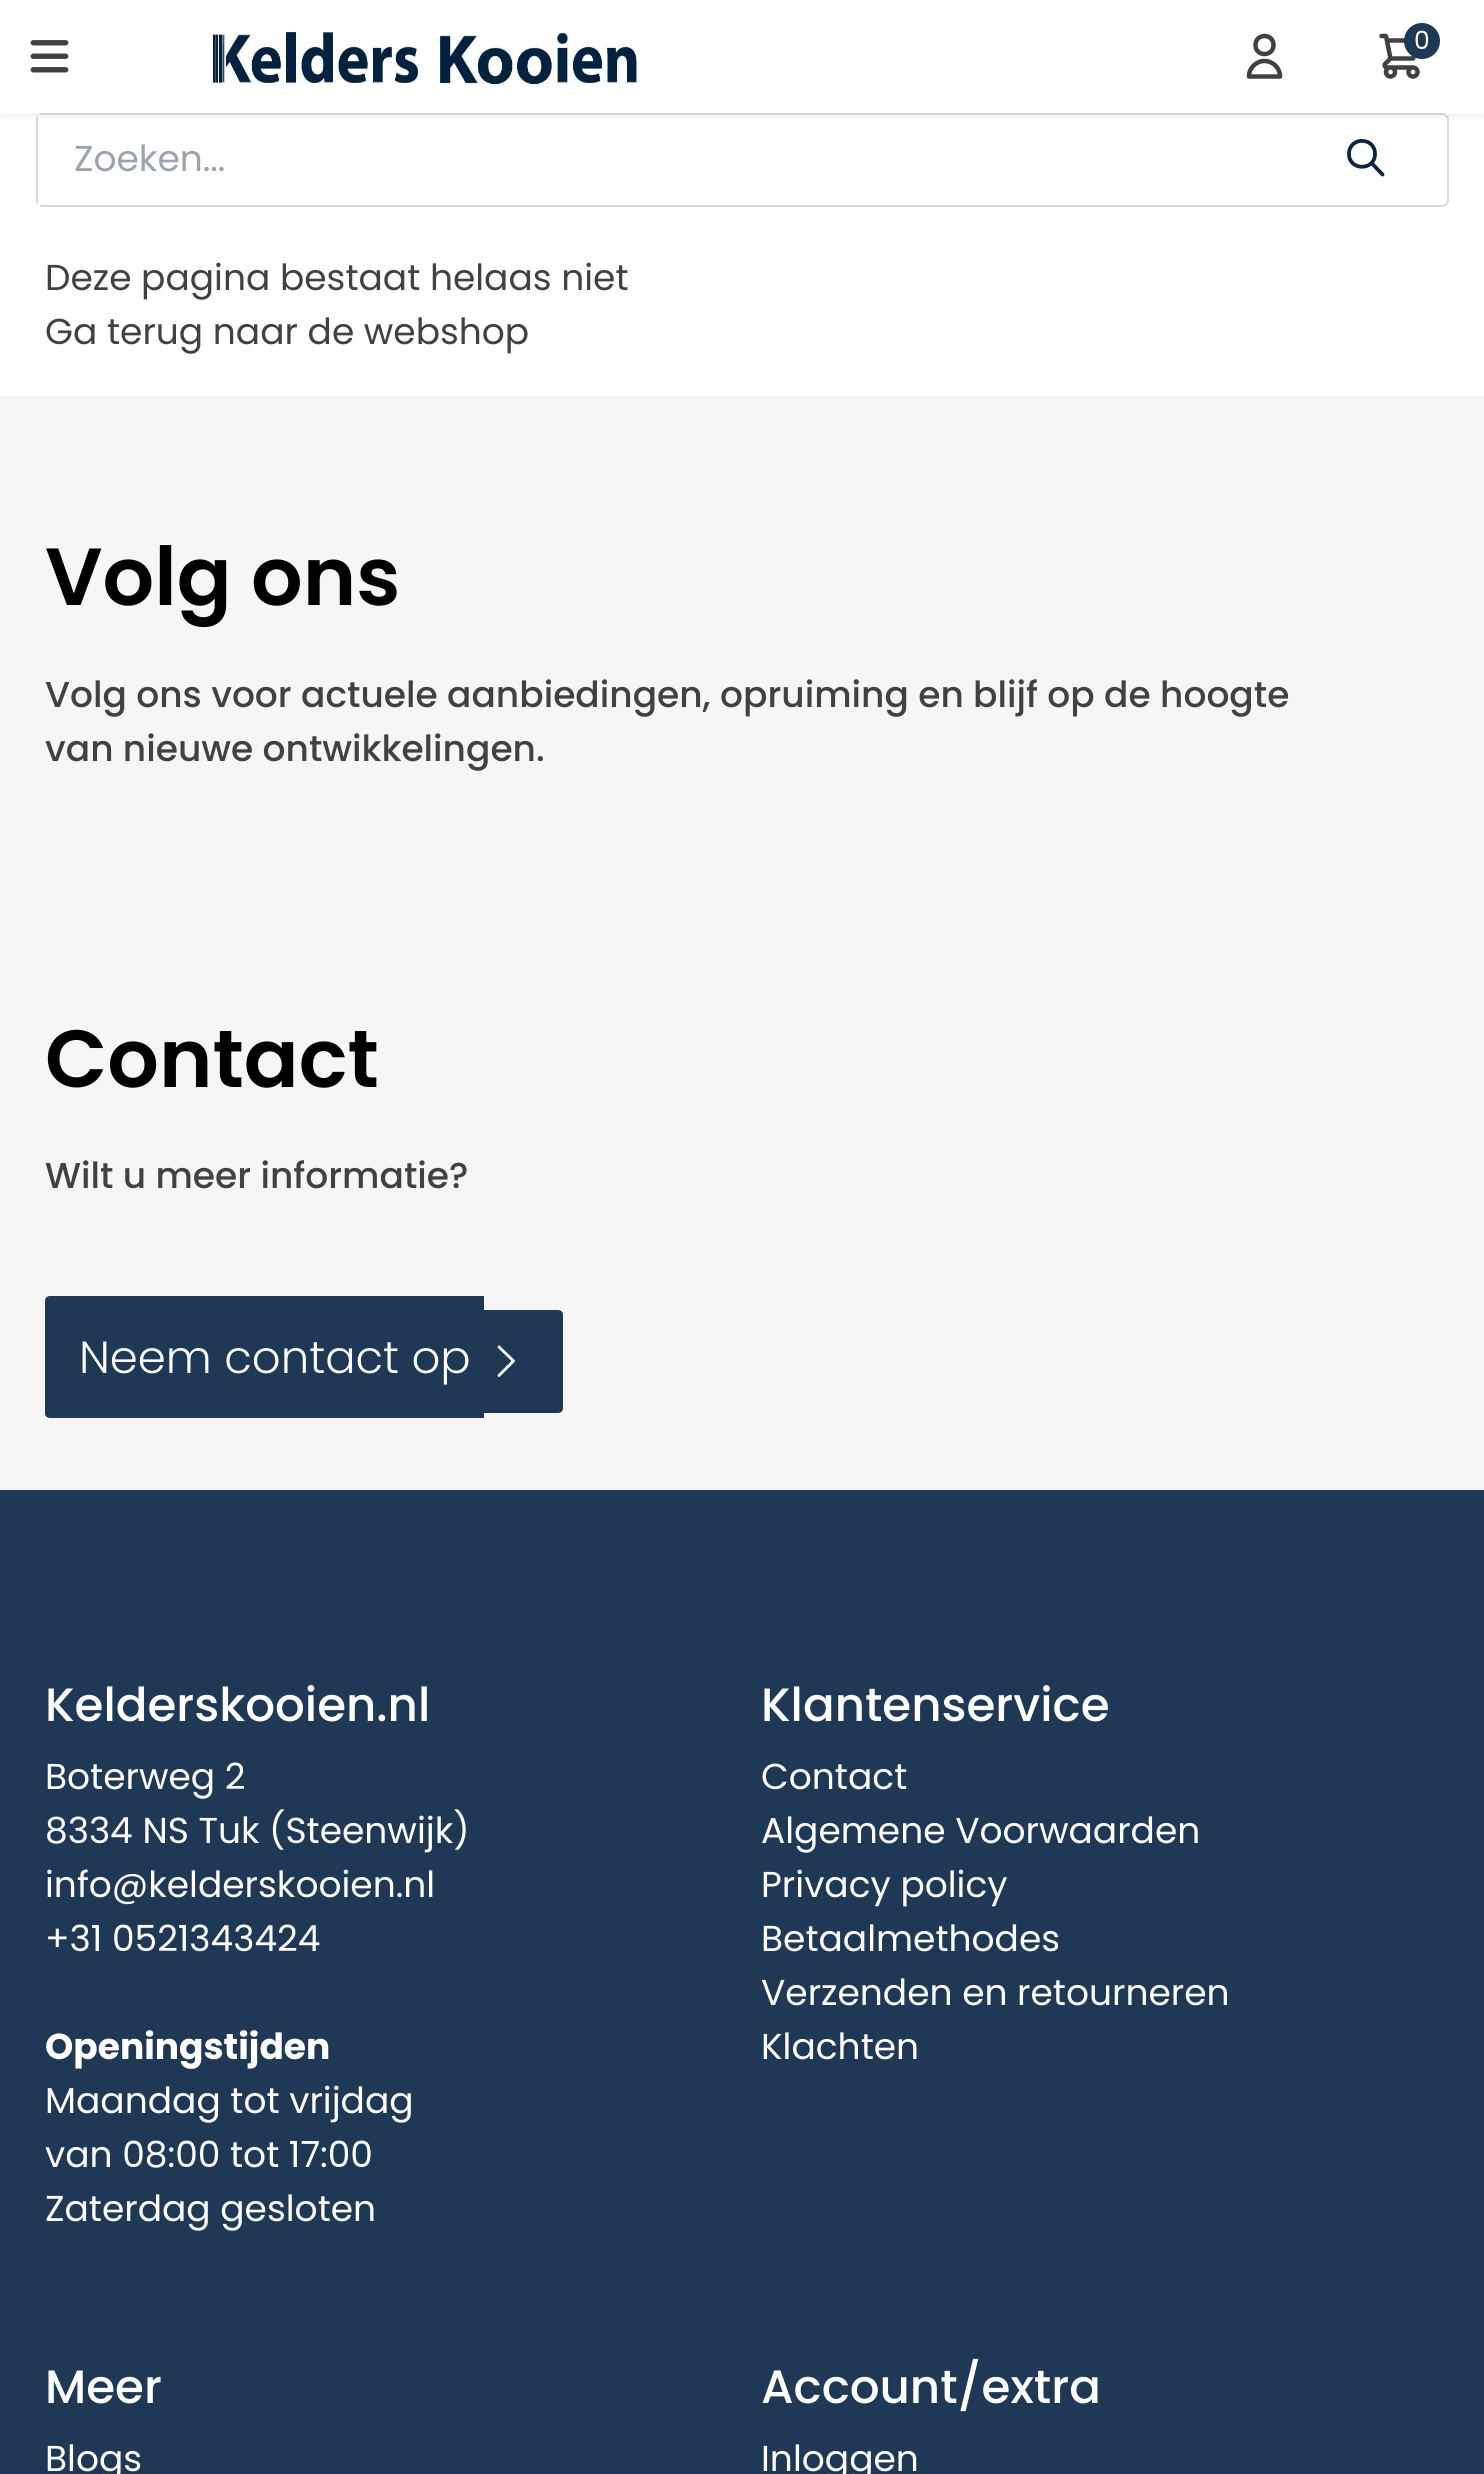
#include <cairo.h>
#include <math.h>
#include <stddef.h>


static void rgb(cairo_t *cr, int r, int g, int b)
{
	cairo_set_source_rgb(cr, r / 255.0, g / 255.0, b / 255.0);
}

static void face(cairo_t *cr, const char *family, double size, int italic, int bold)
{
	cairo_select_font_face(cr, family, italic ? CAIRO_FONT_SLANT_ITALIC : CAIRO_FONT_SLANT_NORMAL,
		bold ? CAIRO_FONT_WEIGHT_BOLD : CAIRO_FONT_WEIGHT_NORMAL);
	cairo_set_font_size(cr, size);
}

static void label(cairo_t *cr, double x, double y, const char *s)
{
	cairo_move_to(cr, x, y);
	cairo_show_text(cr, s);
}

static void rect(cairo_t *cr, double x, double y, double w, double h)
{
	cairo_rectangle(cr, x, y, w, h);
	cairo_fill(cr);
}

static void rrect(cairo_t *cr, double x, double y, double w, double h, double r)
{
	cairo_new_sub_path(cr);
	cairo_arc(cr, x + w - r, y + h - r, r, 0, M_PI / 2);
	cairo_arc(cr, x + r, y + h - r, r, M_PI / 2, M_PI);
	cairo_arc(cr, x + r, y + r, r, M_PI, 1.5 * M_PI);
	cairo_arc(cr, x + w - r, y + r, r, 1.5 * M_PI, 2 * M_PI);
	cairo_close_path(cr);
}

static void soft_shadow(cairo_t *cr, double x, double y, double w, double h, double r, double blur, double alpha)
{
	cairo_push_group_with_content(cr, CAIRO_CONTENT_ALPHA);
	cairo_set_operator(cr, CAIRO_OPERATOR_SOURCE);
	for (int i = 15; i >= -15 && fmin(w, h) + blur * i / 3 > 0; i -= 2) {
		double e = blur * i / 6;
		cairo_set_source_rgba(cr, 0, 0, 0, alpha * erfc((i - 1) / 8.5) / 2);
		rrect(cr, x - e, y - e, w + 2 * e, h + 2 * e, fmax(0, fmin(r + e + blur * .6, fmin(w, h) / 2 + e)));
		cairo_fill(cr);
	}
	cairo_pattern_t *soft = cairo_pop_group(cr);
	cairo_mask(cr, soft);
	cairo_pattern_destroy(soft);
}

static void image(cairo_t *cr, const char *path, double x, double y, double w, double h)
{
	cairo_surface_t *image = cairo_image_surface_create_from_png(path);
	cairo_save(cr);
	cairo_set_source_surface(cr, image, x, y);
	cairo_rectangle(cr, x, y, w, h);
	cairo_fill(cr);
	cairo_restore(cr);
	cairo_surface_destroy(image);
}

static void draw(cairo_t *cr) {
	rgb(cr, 255, 255, 255);
	cairo_paint(cr);
	rrect(cr, 37, 114, 1411, 92, 6);
	rgb(cr, 213, 218, 223);
	cairo_stroke(cr);
	rgb(cr, 255, 255, 255);
	rect(cr, 38, 115, 4, 90);
	rgb(cr, 0, 0, 0);
	soft_shadow(cr, 0, 7, 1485, 112, 0, 3.5, 0.04);
	rgb(cr, 255, 255, 255);
	rect(cr, 0, 5, 1484, 108);
	image(cr, "image0.png", 30, 40, 39, 33);
	image(cr, "image1.png", 209, 29, 429, 57);
	cairo_new_path(cr);
	cairo_move_to(cr, 1273.5, 45);
	cairo_curve_to(cr, 1273.5, 57, 1255.5, 57, 1255.5, 45);
	cairo_curve_to(cr, 1255.5, 33, 1273.5, 33, 1273.5, 45);
	cairo_close_path(cr);
	cairo_move_to(cr, 1264.5, 61);
	cairo_curve_to(cr, 1256, 61, 1249, 68, 1249, 76.5);
	cairo_line_to(cr, 1280, 76.5);
	cairo_curve_to(cr, 1280, 68, 1273, 61, 1264.5, 61);
	cairo_close_path(cr);
	rgb(cr, 65, 65, 65);
	cairo_set_line_width(cr, 4.5);
	cairo_set_line_cap(cr, CAIRO_LINE_CAP_ROUND);
	cairo_set_line_join(cr, CAIRO_LINE_JOIN_ROUND);
	cairo_stroke(cr);
	image(cr, "image2.png", 1379, 33, 41, 46);
	rgb(cr, 31, 56, 85);
	cairo_arc(cr, 1422, 41, 17, 0, 2 * M_PI);
	cairo_fill_preserve(cr);
	cairo_set_line_width(cr, 2);
	cairo_set_line_cap(cr, CAIRO_LINE_CAP_BUTT);
	cairo_set_line_join(cr, CAIRO_LINE_JOIN_MITER);
	cairo_stroke(cr);
	face(cr, "Poppins", 25, 0, 0);
	rgb(cr, 255, 255, 255);
	label(cr, 1414, 49, "0");
	face(cr, "Poppins", 36, 0, 0);
	rgb(cr, 156, 163, 175);
	label(cr, 74, 171, "Zoeken...");
	cairo_new_path(cr);
	cairo_move_to(cr, 1382.5, 174.5);
	cairo_line_to(cr, 1371.5, 163);
	cairo_move_to(cr, 1375, 154);
	cairo_curve_to(cr, 1375, 171, 1349, 171, 1349, 154);
	cairo_curve_to(cr, 1349, 136.5, 1375, 136.5, 1375, 154);
	cairo_close_path(cr);
	rgb(cr, 8, 38, 65);
	cairo_set_line_width(cr, 3.8);
	cairo_set_line_cap(cr, CAIRO_LINE_CAP_ROUND);
	cairo_set_line_join(cr, CAIRO_LINE_JOIN_ROUND);
	cairo_stroke(cr);
	rgb(cr, 65, 65, 65);
	label(cr, 45, 290, "Deze pagina bestaat helaas niet");
	label(cr, 45, 344, "Ga terug naar de webshop");
	rgb(cr, 246, 246, 246);
	rect(cr, 0, 396, 1484, 1094);
	face(cr, "Poppins SemiBold", 81, 0, 0);
	rgb(cr, 0, 0, 0);
	label(cr, 45, 605, "Volg ons");
	face(cr, "Poppins Medium", 36, 0, 0);
	rgb(cr, 65, 65, 65);
	label(cr, 45, 707, "Volg ons voor actuele aanbiedingen, opruiming en blijf op de hoogte");
	label(cr, 45, 761, "van nieuwe ontwikkelingen.");
	face(cr, "Poppins SemiBold", 81, 0, 0);
	rgb(cr, 0, 0, 0);
	label(cr, 45, 1087, "Contact");
	face(cr, "Poppins Medium", 36, 0, 0);
	rgb(cr, 65, 65, 65);
	label(cr, 45, 1188, "Wilt u meer informatie?");
	rgb(cr, 31, 56, 85);
	cairo_new_path(cr);
	cairo_move_to(cr, 50, 1296);
	cairo_line_to(cr, 484, 1296);
	cairo_line_to(cr, 484, 1418);
	cairo_line_to(cr, 50, 1418);
	cairo_curve_to(cr, 47, 1418, 45, 1416, 45, 1413);
	cairo_line_to(cr, 45, 1301);
	cairo_curve_to(cr, 45, 1298, 47, 1296, 50, 1296);
	cairo_close_path(cr);
	cairo_fill(cr);
	face(cr, "Poppins Light", 45, 0, 0);
	rgb(cr, 255, 255, 255);
	label(cr, 79, 1373, "Neem contact op");
	rgb(cr, 31, 56, 85);
	cairo_new_path(cr);
	cairo_move_to(cr, 484, 1310);
	cairo_line_to(cr, 558, 1310);
	cairo_curve_to(cr, 561, 1310, 563, 1312, 563, 1315);
	cairo_line_to(cr, 563, 1408);
	cairo_curve_to(cr, 563, 1411, 561, 1413, 558, 1413);
	cairo_line_to(cr, 484, 1413);
	cairo_close_path(cr);
	cairo_fill(cr);
	cairo_new_path(cr);
	cairo_move_to(cr, 499, 1347);
	cairo_line_to(cr, 513.5, 1361);
	cairo_line_to(cr, 499, 1375.5);
	rgb(cr, 255, 255, 255);
	cairo_set_line_width(cr, 2.8);
	cairo_stroke(cr);
	rgb(cr, 31, 56, 85);
	rect(cr, 0, 1490, 1484, 984);
	face(cr, "Poppins Medium", 46.75, 0, 0);
	rgb(cr, 255, 255, 255);
	label(cr, 45, 1721, "Kelderskooien.nl");
	face(cr, "Poppins", 36, 0, 0);
	label(cr, 45, 1789, "Boterweg 2");
	label(cr, 45, 1843, "8334 NS Tuk (Steenwijk)");
	label(cr, 45, 1897, "info@kelderskooien.nl");
	label(cr, 45, 1951, "+31 0521343424");
	face(cr, "Poppins", 36, 0, 1);
	label(cr, 45, 2059, "Openingstijden");
	face(cr, "Poppins", 36, 0, 0);
	label(cr, 45, 2113, "Maandag tot vrijdag");
	label(cr, 45, 2167, "van 08:00 tot 17:00");
	label(cr, 45, 2221, "Zaterdag gesloten");
	face(cr, "Poppins Medium", 46.75, 0, 0);
	label(cr, 761, 1721, "Klantenservice");
	face(cr, "Poppins", 36, 0, 0);
	label(cr, 761, 1789, "Contact");
	label(cr, 761, 1843, "Algemene Voorwaarden");
	label(cr, 761, 1897, "Privacy policy");
	label(cr, 761, 1951, "Betaalmethodes");
	label(cr, 761, 2005, "Verzenden en retourneren");
	label(cr, 761, 2059, "Klachten");
	face(cr, "Poppins Medium", 46.75, 0, 0);
	label(cr, 45, 2403, "Meer");
	face(cr, "Poppins", 36, 0, 0);
	label(cr, 45, 2471, "Blogs");
	face(cr, "Poppins Medium", 46.75, 0, 0);
	label(cr, 761, 2403, "Account/extra");
	face(cr, "Poppins", 36, 0, 0);
	label(cr, 761, 2471, "Inloggen");
}

int main(void) {
	cairo_surface_t *surface = cairo_image_surface_create(CAIRO_FORMAT_RGB24, 1484, 2474);
	cairo_t *cr = cairo_create(surface);
	cairo_font_options_t *options = cairo_font_options_create();
	cairo_font_options_set_hint_metrics(options, CAIRO_HINT_METRICS_OFF);
	cairo_font_options_set_hint_style(options, CAIRO_HINT_STYLE_NONE);
	cairo_set_font_options(cr, options);
	cairo_set_miter_limit(cr, 4);
	draw(cr);
	cairo_surface_write_to_png(surface, "render.png");
	cairo_font_options_destroy(options);
	cairo_destroy(cr);
	cairo_surface_destroy(surface);
	return 0;
}
